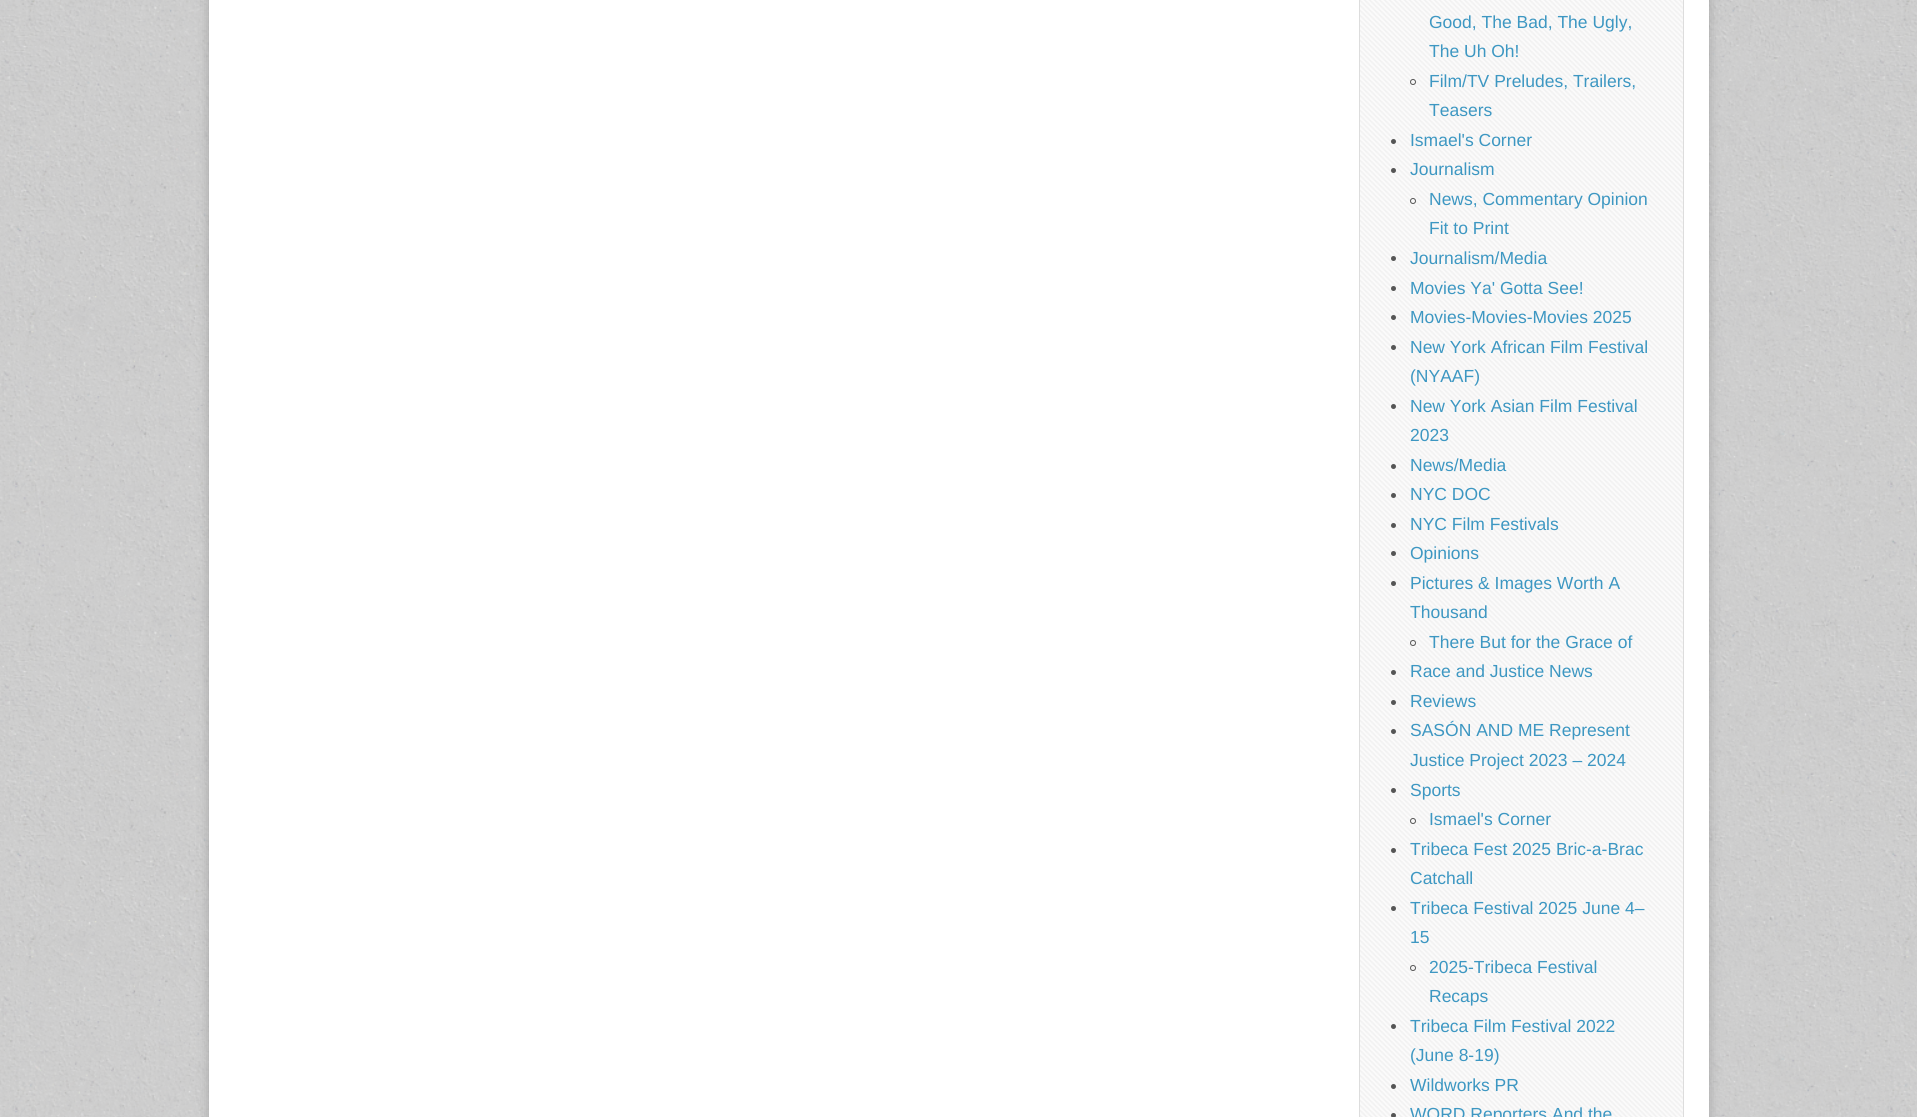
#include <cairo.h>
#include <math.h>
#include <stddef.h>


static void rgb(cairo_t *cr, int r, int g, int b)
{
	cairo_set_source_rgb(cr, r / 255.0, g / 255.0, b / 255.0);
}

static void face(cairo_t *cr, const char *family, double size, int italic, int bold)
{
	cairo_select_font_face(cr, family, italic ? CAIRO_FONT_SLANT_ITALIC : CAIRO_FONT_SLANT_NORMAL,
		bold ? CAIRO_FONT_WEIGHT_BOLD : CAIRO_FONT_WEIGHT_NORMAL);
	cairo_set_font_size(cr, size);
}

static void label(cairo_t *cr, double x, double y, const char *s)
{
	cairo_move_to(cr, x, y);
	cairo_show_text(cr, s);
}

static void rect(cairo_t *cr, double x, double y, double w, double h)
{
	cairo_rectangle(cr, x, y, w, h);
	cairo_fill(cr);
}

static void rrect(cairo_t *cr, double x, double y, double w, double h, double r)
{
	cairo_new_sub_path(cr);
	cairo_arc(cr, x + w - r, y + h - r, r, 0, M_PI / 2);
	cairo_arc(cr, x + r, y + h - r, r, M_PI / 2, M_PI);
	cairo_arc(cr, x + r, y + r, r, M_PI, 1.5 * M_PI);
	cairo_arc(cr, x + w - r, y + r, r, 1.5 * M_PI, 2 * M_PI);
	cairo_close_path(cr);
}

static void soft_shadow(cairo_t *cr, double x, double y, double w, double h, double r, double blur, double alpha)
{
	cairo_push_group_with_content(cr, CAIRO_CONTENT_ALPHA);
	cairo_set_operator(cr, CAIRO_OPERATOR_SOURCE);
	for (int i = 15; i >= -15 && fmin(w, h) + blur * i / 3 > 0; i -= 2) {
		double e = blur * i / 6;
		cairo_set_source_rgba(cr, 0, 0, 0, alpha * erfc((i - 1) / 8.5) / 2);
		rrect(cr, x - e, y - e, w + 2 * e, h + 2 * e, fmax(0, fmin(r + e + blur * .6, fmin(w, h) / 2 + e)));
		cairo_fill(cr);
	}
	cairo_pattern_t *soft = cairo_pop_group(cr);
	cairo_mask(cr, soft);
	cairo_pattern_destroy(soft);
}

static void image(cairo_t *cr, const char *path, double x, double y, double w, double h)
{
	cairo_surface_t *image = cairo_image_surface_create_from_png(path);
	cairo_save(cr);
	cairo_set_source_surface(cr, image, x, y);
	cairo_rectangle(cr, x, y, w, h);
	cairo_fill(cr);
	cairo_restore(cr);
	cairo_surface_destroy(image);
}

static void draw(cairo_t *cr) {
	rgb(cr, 255, 255, 255);
	cairo_paint(cr);
	image(cr, "image0.png", 0, 0, 1917, 1117);
	rgb(cr, 0, 0, 0);
	soft_shadow(cr, 209, -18, 1500, 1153, 0, 6, 0.2);
	rgb(cr, 255, 255, 255);
	rect(cr, 209, 0, 1500, 1117);
	image(cr, "image1.png", 1360, 0, 323, 1117);
	cairo_rectangle(cr, 1359.5, -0.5, 324, 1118);
	rgb(cr, 221, 221, 221);
	cairo_set_line_width(cr, 1);
	cairo_stroke(cr);
	face(cr, "Liberation Sans", 17.5, 0, 0);
	rgb(cr, 61, 151, 194);
	label(cr, 1429, 28, "Good, The Bad, The Ugly,");
	label(cr, 1429, 57, "The Uh Oh!");
	cairo_new_path(cr);
	cairo_arc(cr, 1413, 82, 2.5, 0, 2 * M_PI);
	rgb(cr, 85, 85, 85);
	cairo_stroke(cr);
	rgb(cr, 61, 151, 194);
	label(cr, 1429, 87, "Film/TV Preludes, Trailers,");
	label(cr, 1429, 116, "Teasers");
	rgb(cr, 85, 85, 85);
	cairo_new_path(cr);
	cairo_arc(cr, 1393.5, 141.5, 2.5, 0, 2 * M_PI);
	cairo_fill(cr);
	rgb(cr, 61, 151, 194);
	label(cr, 1410, 146, "Ismael's Corner");
	rgb(cr, 85, 85, 85);
	cairo_new_path(cr);
	cairo_arc(cr, 1393.5, 170.5, 2.5, 0, 2 * M_PI);
	cairo_fill(cr);
	rgb(cr, 61, 151, 194);
	label(cr, 1410, 175, "Journalism");
	cairo_new_path(cr);
	cairo_arc(cr, 1413, 201, 2.5, 0, 2 * M_PI);
	rgb(cr, 85, 85, 85);
	cairo_stroke(cr);
	rgb(cr, 61, 151, 194);
	label(cr, 1429, 205, "News, Commentary Opinion");
	label(cr, 1429, 234, "Fit to Print");
	rgb(cr, 85, 85, 85);
	cairo_new_path(cr);
	cairo_arc(cr, 1393.5, 258.5, 2.5, 0, 2 * M_PI);
	cairo_fill(cr);
	rgb(cr, 61, 151, 194);
	label(cr, 1410, 264, "Journalism/Media");
	rgb(cr, 85, 85, 85);
	cairo_new_path(cr);
	cairo_arc(cr, 1393.5, 288.5, 2.5, 0, 2 * M_PI);
	cairo_fill(cr);
	rgb(cr, 61, 151, 194);
	label(cr, 1410, 294, "Movies Ya' Gotta See!");
	rgb(cr, 85, 85, 85);
	cairo_new_path(cr);
	cairo_arc(cr, 1393.5, 317.5, 2.5, 0, 2 * M_PI);
	cairo_fill(cr);
	rgb(cr, 61, 151, 194);
	label(cr, 1410, 323, "Movies-Movies-Movies 2025");
	rgb(cr, 85, 85, 85);
	cairo_new_path(cr);
	cairo_arc(cr, 1393.5, 347.5, 2.5, 0, 2 * M_PI);
	cairo_fill(cr);
	rgb(cr, 61, 151, 194);
	label(cr, 1410, 353, "New York African Film Festival");
	label(cr, 1410, 382, "(NYAAF)");
	rgb(cr, 85, 85, 85);
	cairo_new_path(cr);
	cairo_arc(cr, 1393.5, 406.5, 2.5, 0, 2 * M_PI);
	cairo_fill(cr);
	rgb(cr, 61, 151, 194);
	label(cr, 1410, 412, "New York Asian Film Festival");
	label(cr, 1410, 441, "2023");
	rgb(cr, 85, 85, 85);
	cairo_new_path(cr);
	cairo_arc(cr, 1393.5, 466.5, 2.5, 0, 2 * M_PI);
	cairo_fill(cr);
	rgb(cr, 61, 151, 194);
	label(cr, 1410, 471, "News/Media");
	rgb(cr, 85, 85, 85);
	cairo_new_path(cr);
	cairo_arc(cr, 1393.5, 495.5, 2.5, 0, 2 * M_PI);
	cairo_fill(cr);
	rgb(cr, 61, 151, 194);
	label(cr, 1410, 500, "NYC DOC");
	rgb(cr, 85, 85, 85);
	cairo_new_path(cr);
	cairo_arc(cr, 1393.5, 525.5, 2.5, 0, 2 * M_PI);
	cairo_fill(cr);
	rgb(cr, 61, 151, 194);
	label(cr, 1410, 530, "NYC Film Festivals");
	rgb(cr, 85, 85, 85);
	cairo_new_path(cr);
	cairo_arc(cr, 1393.5, 553.5, 2.5, 0, 2 * M_PI);
	cairo_fill(cr);
	rgb(cr, 61, 151, 194);
	label(cr, 1410, 559, "Opinions");
	rgb(cr, 85, 85, 85);
	cairo_new_path(cr);
	cairo_arc(cr, 1393.5, 583.5, 2.5, 0, 2 * M_PI);
	cairo_fill(cr);
	rgb(cr, 61, 151, 194);
	label(cr, 1410, 589, "Pictures & Images Worth A");
	label(cr, 1410, 618, "Thousand");
	cairo_new_path(cr);
	cairo_arc(cr, 1413, 643, 2.5, 0, 2 * M_PI);
	rgb(cr, 85, 85, 85);
	cairo_stroke(cr);
	rgb(cr, 61, 151, 194);
	label(cr, 1429, 648, "There But for the Grace of");
	rgb(cr, 85, 85, 85);
	cairo_new_path(cr);
	cairo_arc(cr, 1393.5, 672.5, 2.5, 0, 2 * M_PI);
	cairo_fill(cr);
	rgb(cr, 61, 151, 194);
	label(cr, 1410, 677, "Race and Justice News");
	rgb(cr, 85, 85, 85);
	cairo_new_path(cr);
	cairo_arc(cr, 1393.5, 702.5, 2.5, 0, 2 * M_PI);
	cairo_fill(cr);
	rgb(cr, 61, 151, 194);
	label(cr, 1410, 707, "Reviews");
	rgb(cr, 85, 85, 85);
	cairo_new_path(cr);
	cairo_arc(cr, 1393.5, 731.5, 2.5, 0, 2 * M_PI);
	cairo_fill(cr);
	rgb(cr, 61, 151, 194);
	label(cr, 1410, 736, "SASÓN AND ME Represent");
	label(cr, 1410, 766, "Justice Project 2023 – 2024");
	rgb(cr, 85, 85, 85);
	cairo_new_path(cr);
	cairo_arc(cr, 1393.5, 790.5, 2.5, 0, 2 * M_PI);
	cairo_fill(cr);
	rgb(cr, 61, 151, 194);
	label(cr, 1410, 796, "Sports");
	cairo_new_path(cr);
	cairo_arc(cr, 1413, 821, 2.5, 0, 2 * M_PI);
	rgb(cr, 85, 85, 85);
	cairo_stroke(cr);
	rgb(cr, 61, 151, 194);
	label(cr, 1429, 825, "Ismael's Corner");
	rgb(cr, 85, 85, 85);
	cairo_new_path(cr);
	cairo_arc(cr, 1393.5, 850.5, 2.5, 0, 2 * M_PI);
	cairo_fill(cr);
	rgb(cr, 61, 151, 194);
	label(cr, 1410, 855, "Tribeca Fest 2025 Bric-a-Brac");
	label(cr, 1410, 884, "Catchall");
	rgb(cr, 85, 85, 85);
	cairo_new_path(cr);
	cairo_arc(cr, 1393.5, 908.5, 2.5, 0, 2 * M_PI);
	cairo_fill(cr);
	rgb(cr, 61, 151, 194);
	label(cr, 1410, 914, "Tribeca Festival 2025 June 4–");
	label(cr, 1410, 943, "15");
	cairo_new_path(cr);
	cairo_arc(cr, 1413, 968, 2.5, 0, 2 * M_PI);
	rgb(cr, 85, 85, 85);
	cairo_stroke(cr);
	rgb(cr, 61, 151, 194);
	label(cr, 1429, 973, "2025-Tribeca Festival");
	label(cr, 1429, 1002, "Recaps");
	rgb(cr, 85, 85, 85);
	cairo_new_path(cr);
	cairo_arc(cr, 1393.5, 1026.5, 2.5, 0, 2 * M_PI);
	cairo_fill(cr);
	rgb(cr, 61, 151, 194);
	label(cr, 1410, 1032, "Tribeca Film Festival 2022");
	label(cr, 1410, 1061, "(June 8-19)");
	rgb(cr, 85, 85, 85);
	cairo_new_path(cr);
	cairo_arc(cr, 1393.5, 1086.5, 2.5, 0, 2 * M_PI);
	cairo_fill(cr);
	rgb(cr, 61, 151, 194);
	label(cr, 1410, 1091, "Wildworks PR");
	rgb(cr, 85, 85, 85);
	cairo_new_path(cr);
	cairo_arc(cr, 1393.5, 1115.5, 2.5, 0, 2 * M_PI);
	cairo_fill(cr);
	rgb(cr, 61, 151, 194);
	label(cr, 1410, 1120, "WORD Reporters And the");
}

int main(void) {
	cairo_surface_t *surface = cairo_image_surface_create(CAIRO_FORMAT_RGB24, 1917, 1117);
	cairo_t *cr = cairo_create(surface);
	cairo_font_options_t *options = cairo_font_options_create();
	cairo_font_options_set_hint_metrics(options, CAIRO_HINT_METRICS_OFF);
	cairo_font_options_set_hint_style(options, CAIRO_HINT_STYLE_NONE);
	cairo_set_font_options(cr, options);
	cairo_set_miter_limit(cr, 4);
	draw(cr);
	cairo_surface_write_to_png(surface, "render.png");
	cairo_font_options_destroy(options);
	cairo_destroy(cr);
	cairo_surface_destroy(surface);
	return 0;
}
